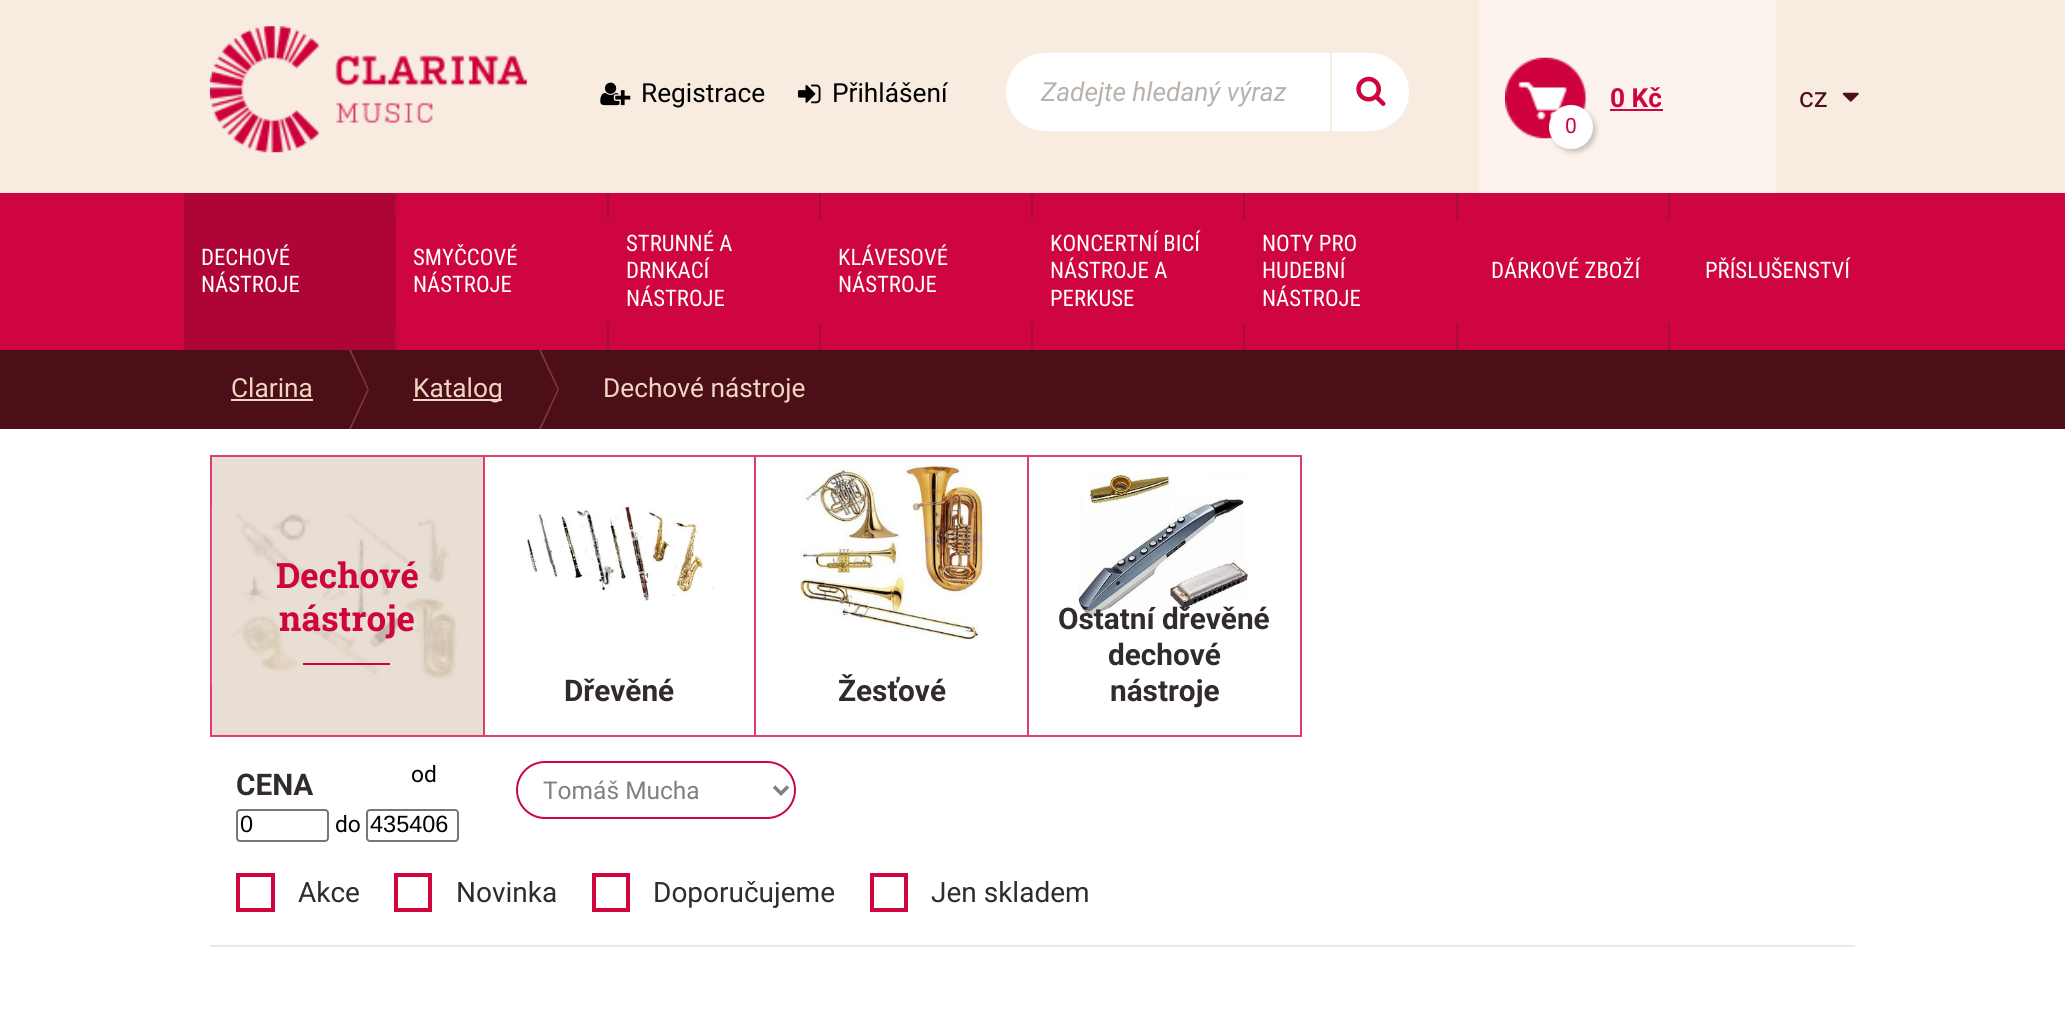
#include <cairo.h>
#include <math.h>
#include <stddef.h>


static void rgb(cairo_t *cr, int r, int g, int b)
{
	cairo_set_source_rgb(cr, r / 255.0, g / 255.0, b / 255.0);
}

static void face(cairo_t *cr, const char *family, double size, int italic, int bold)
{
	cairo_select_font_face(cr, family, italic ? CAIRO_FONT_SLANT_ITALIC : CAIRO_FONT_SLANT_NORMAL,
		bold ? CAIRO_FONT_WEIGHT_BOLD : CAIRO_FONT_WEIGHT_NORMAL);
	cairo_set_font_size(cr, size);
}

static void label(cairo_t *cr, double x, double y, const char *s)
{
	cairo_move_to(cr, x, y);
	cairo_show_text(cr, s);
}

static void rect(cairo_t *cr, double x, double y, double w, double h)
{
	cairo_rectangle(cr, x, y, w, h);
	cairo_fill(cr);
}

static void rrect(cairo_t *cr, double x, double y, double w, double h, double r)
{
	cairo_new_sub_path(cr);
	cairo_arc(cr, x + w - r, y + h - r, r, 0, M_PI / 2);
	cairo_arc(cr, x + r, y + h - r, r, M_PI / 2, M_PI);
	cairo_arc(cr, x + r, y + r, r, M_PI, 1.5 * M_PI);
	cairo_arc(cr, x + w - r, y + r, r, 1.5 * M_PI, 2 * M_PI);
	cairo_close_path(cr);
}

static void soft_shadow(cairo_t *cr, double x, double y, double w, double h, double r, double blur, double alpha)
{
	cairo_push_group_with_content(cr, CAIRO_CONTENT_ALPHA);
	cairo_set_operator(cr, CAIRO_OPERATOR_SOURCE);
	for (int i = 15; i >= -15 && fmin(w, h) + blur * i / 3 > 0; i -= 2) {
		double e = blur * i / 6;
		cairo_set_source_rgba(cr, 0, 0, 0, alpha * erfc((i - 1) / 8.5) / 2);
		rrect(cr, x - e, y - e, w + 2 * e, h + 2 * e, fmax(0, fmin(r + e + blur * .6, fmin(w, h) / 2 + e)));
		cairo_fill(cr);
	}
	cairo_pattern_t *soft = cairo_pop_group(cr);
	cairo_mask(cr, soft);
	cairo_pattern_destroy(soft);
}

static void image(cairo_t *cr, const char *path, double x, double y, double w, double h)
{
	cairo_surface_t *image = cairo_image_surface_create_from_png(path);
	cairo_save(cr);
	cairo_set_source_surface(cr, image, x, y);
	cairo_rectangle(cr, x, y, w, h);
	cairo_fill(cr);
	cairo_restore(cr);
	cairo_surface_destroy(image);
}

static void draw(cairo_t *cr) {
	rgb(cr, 248, 235, 224);
	cairo_paint(cr);
	image(cr, "image0.png", 210, 26, 317, 127);
	image(cr, "image1.png", 600, 82, 31, 24);
	face(cr, "Roboto", 26.25, 0, 0);
	rgb(cr, 0, 0, 0);
	label(cr, 641, 102, "Registrace");
	image(cr, "image2.png", 798, 84, 23, 20);
	label(cr, 832, 102, "Přihlášení");
	rgb(cr, 255, 255, 255);
	rrect(cr, 1006, 53, 403, 78, 39);
	cairo_fill(cr);
	face(cr, "Roboto", 26.25, 1, 0);
	rgb(cr, 185, 177, 171);
	label(cr, 1041, 101, "Zadejte hledaný výraz");
	rgb(cr, 248, 235, 224);
	rect(cr, 1330, 53, 2, 78);
	image(cr, "image3.png", 1356, 76, 30, 30);
	rgb(cr, 251, 243, 236);
	rect(cr, 1479, 0, 297, 193);
	image(cr, "image4.png", 1505, 57, 81, 82);
	face(cr, "Roboto", 26.25, 0, 1);
	rgb(cr, 206, 5, 63);
	label(cr, 1610, 107, "0 Kč");
	rect(cr, 1610, 109, 53, 2);
	rgb(cr, 0, 0, 0);
	soft_shadow(cr, 1552, 109, 44, 43, 21.5, 2.5, 0.2);
	rgb(cr, 255, 255, 255);
	cairo_arc(cr, 1571, 127, 22, 0, 2 * M_PI);
	cairo_fill(cr);
	face(cr, "Roboto", 21, 0, 0);
	rgb(cr, 206, 5, 63);
	label(cr, 1565, 133, "0");
	face(cr, "Roboto", 28, 0, 0);
	rgb(cr, 78, 17, 25);
	label(cr, 1799, 107, "cz");
	image(cr, "image5.png", 1842, 92, 17, 10);
	rgb(cr, 206, 5, 63);
	rect(cr, 0, 193, 2065, 157);
	rgb(cr, 175, 4, 54);
	rect(cr, 184, 193, 212, 157);
	rgb(cr, 165, 14, 54);
	rect(cr, 394, 193, 2, 26);
	face(cr, "Roboto Condensed", 22.75, 0, 0);
	rgb(cr, 255, 255, 255);
	label(cr, 201, 265, "DECHOVÉ");
	label(cr, 201, 292, "NÁSTROJE");
	rgb(cr, 165, 14, 54);
	rect(cr, 394, 324, 2, 26);
	rect(cr, 607, 193, 2, 26);
	rgb(cr, 255, 255, 255);
	label(cr, 413, 265, "SMYČCOVÉ");
	label(cr, 413, 292, "NÁSTROJE");
	rgb(cr, 165, 14, 54);
	rect(cr, 607, 324, 2, 26);
	rect(cr, 819, 193, 2, 26);
	rgb(cr, 255, 255, 255);
	label(cr, 626, 251, "STRUNNÉ A");
	label(cr, 626, 278, "DRNKACÍ");
	label(cr, 626, 306, "NÁSTROJE");
	rgb(cr, 165, 14, 54);
	rect(cr, 819, 324, 2, 26);
	rect(cr, 1031, 193, 2, 26);
	rgb(cr, 255, 255, 255);
	label(cr, 838, 265, "KLÁVESOVÉ");
	label(cr, 838, 292, "NÁSTROJE");
	rgb(cr, 165, 14, 54);
	rect(cr, 1031, 324, 2, 26);
	rect(cr, 1243, 193, 2, 26);
	rgb(cr, 255, 255, 255);
	label(cr, 1050, 251, "KONCERTNÍ BICÍ");
	label(cr, 1050, 278, "NÁSTROJE A");
	label(cr, 1050, 306, "PERKUSE");
	rgb(cr, 165, 14, 54);
	rect(cr, 1243, 324, 2, 26);
	rect(cr, 1456, 193, 2, 26);
	rgb(cr, 255, 255, 255);
	label(cr, 1262, 251, "NOTY PRO");
	label(cr, 1262, 278, "HUDEBNÍ");
	label(cr, 1262, 306, "NÁSTROJE");
	rgb(cr, 165, 14, 54);
	rect(cr, 1456, 324, 2, 26);
	rect(cr, 1668, 193, 2, 26);
	rgb(cr, 255, 255, 255);
	label(cr, 1491, 278, "DÁRKOVÉ ZBOŽÍ");
	rgb(cr, 165, 14, 54);
	rect(cr, 1668, 324, 2, 26);
	rgb(cr, 255, 255, 255);
	label(cr, 1705, 278, "PŘÍSLUŠENSTVÍ");
	rgb(cr, 76, 15, 23);
	rect(cr, 0, 350, 2065, 79);
	face(cr, "Roboto", 26.25, 0, 0);
	rgb(cr, 241, 215, 194);
	label(cr, 231, 397, "Clarina");
	rect(cr, 231, 399, 82, 2);
	rgb(cr, 127, 55, 64);
	cairo_new_path(cr);
	cairo_move_to(cr, 349, 350);
	cairo_line_to(cr, 351, 350);
	cairo_line_to(cr, 369, 389.5);
	cairo_line_to(cr, 367.5, 389.5);
	cairo_close_path(cr);
	cairo_fill(cr);
	cairo_new_path(cr);
	cairo_move_to(cr, 367.5, 389.5);
	cairo_line_to(cr, 369, 389.5);
	cairo_line_to(cr, 351, 429);
	cairo_line_to(cr, 349, 429);
	cairo_close_path(cr);
	cairo_fill(cr);
	rgb(cr, 241, 215, 194);
	rect(cr, 413, 399, 89, 2);
	label(cr, 413, 397, "Katalog");
	rgb(cr, 127, 55, 64);
	cairo_new_path(cr);
	cairo_move_to(cr, 539, 350);
	cairo_line_to(cr, 541, 350);
	cairo_line_to(cr, 559, 389.5);
	cairo_line_to(cr, 557.5, 389.5);
	cairo_close_path(cr);
	cairo_fill(cr);
	cairo_new_path(cr);
	cairo_move_to(cr, 557.5, 389.5);
	cairo_line_to(cr, 559, 389.5);
	cairo_line_to(cr, 541, 429);
	cairo_line_to(cr, 539, 429);
	cairo_close_path(cr);
	cairo_fill(cr);
	rgb(cr, 241, 215, 194);
	label(cr, 603, 397, "Dechové nástroje");
	rgb(cr, 255, 255, 255);
	rect(cr, 0, 429, 2065, 580);
	rgb(cr, 233, 222, 213);
	cairo_rectangle(cr, 211, 456, 273, 280);
	cairo_fill_preserve(cr);
	rgb(cr, 220, 63, 108);
	cairo_stroke(cr);
	image(cr, "image6.png", 211, 505, 255, 181);
	face(cr, "Roboto Slab", 35, 0, 1);
	rgb(cr, 206, 5, 63);
	label(cr, 276, 588, "Dechové");
	label(cr, 279, 631, "nástroje");
	rect(cr, 303, 663, 87, 2);
	cairo_rectangle(cr, 484, 456, 271, 280);
	rgb(cr, 220, 63, 108);
	cairo_stroke(cr);
	image(cr, "image7.png", 527, 504, 188, 97);
	face(cr, "Roboto", 29.75, 0, 1);
	rgb(cr, 50, 43, 44);
	label(cr, 564, 701, "Dřevěné");
	cairo_rectangle(cr, 755, 456, 273, 280);
	rgb(cr, 220, 63, 108);
	cairo_stroke(cr);
	image(cr, "image8.png", 799, 465, 185, 176);
	rgb(cr, 50, 43, 44);
	label(cr, 838, 701, "Žesťové");
	cairo_rectangle(cr, 1028, 456, 273, 280);
	rgb(cr, 220, 63, 108);
	cairo_stroke(cr);
	image(cr, "image9.png", 1078, 473, 170, 144);
	rgb(cr, 50, 43, 44);
	label(cr, 1058, 629, "Ostatní dřevěné");
	label(cr, 1108, 665, "dechové");
	label(cr, 1110, 701, "nástroje");
	face(cr, "Roboto", 22.75, 0, 0);
	rgb(cr, 0, 0, 0);
	label(cr, 411, 782, "od");
	rrect(cr, 237, 810, 91, 31, 3);
	rgb(cr, 118, 118, 118);
	cairo_stroke(cr);
	face(cr, "Liberation Sans", 23.5, 0, 0);
	rgb(cr, 0, 0, 0);
	label(cr, 240, 832, "0");
	face(cr, "Roboto", 22.75, 0, 0);
	label(cr, 335, 832, "do");
	rrect(cr, 367, 810, 91, 31, 3);
	rgb(cr, 118, 118, 118);
	cairo_stroke(cr);
	face(cr, "Liberation Sans", 23.5, 0, 0);
	rgb(cr, 0, 0, 0);
	label(cr, 370, 832, "435406");
	face(cr, "Roboto", 29.75, 0, 1);
	rgb(cr, 50, 43, 44);
	label(cr, 236, 795, "CENA");
	rrect(cr, 517, 762, 278, 56, 28);
	rgb(cr, 206, 5, 63);
	cairo_stroke(cr);
	cairo_new_path(cr);
	cairo_move_to(cr, 774, 786.5);
	cairo_line_to(cr, 781, 793.5);
	cairo_line_to(cr, 788, 786.5);
	rgb(cr, 128, 128, 128);
	cairo_set_line_width(cr, 3.5);
	cairo_stroke(cr);
	face(cr, "Roboto", 24.5, 0, 0);
	label(cr, 543, 799, "Tomáš Mucha");
	cairo_rectangle(cr, 238, 875, 35, 35);
	rgb(cr, 206, 5, 63);
	cairo_set_line_width(cr, 4);
	cairo_stroke(cr);
	face(cr, "Roboto", 28, 0, 0);
	rgb(cr, 50, 43, 44);
	label(cr, 298, 902, "Akce");
	cairo_rectangle(cr, 396, 875, 34, 35);
	rgb(cr, 206, 5, 63);
	cairo_stroke(cr);
	rgb(cr, 50, 43, 44);
	label(cr, 456, 902, "Novinka");
	cairo_rectangle(cr, 594, 875, 34, 35);
	rgb(cr, 206, 5, 63);
	cairo_stroke(cr);
	rgb(cr, 50, 43, 44);
	label(cr, 653, 902, "Doporučujeme");
	cairo_rectangle(cr, 872, 875, 34, 35);
	rgb(cr, 206, 5, 63);
	cairo_stroke(cr);
	rgb(cr, 50, 43, 44);
	label(cr, 931, 902, "Jen skladem");
	rgb(cr, 237, 231, 231);
	rect(cr, 210, 945, 1645, 2);
}

int main(void) {
	cairo_surface_t *surface = cairo_image_surface_create(CAIRO_FORMAT_RGB24, 2065, 1009);
	cairo_t *cr = cairo_create(surface);
	cairo_font_options_t *options = cairo_font_options_create();
	cairo_font_options_set_hint_metrics(options, CAIRO_HINT_METRICS_OFF);
	cairo_font_options_set_hint_style(options, CAIRO_HINT_STYLE_NONE);
	cairo_set_font_options(cr, options);
	cairo_set_miter_limit(cr, 4);
	draw(cr);
	cairo_surface_write_to_png(surface, "render.png");
	cairo_font_options_destroy(options);
	cairo_destroy(cr);
	cairo_surface_destroy(surface);
	return 0;
}
